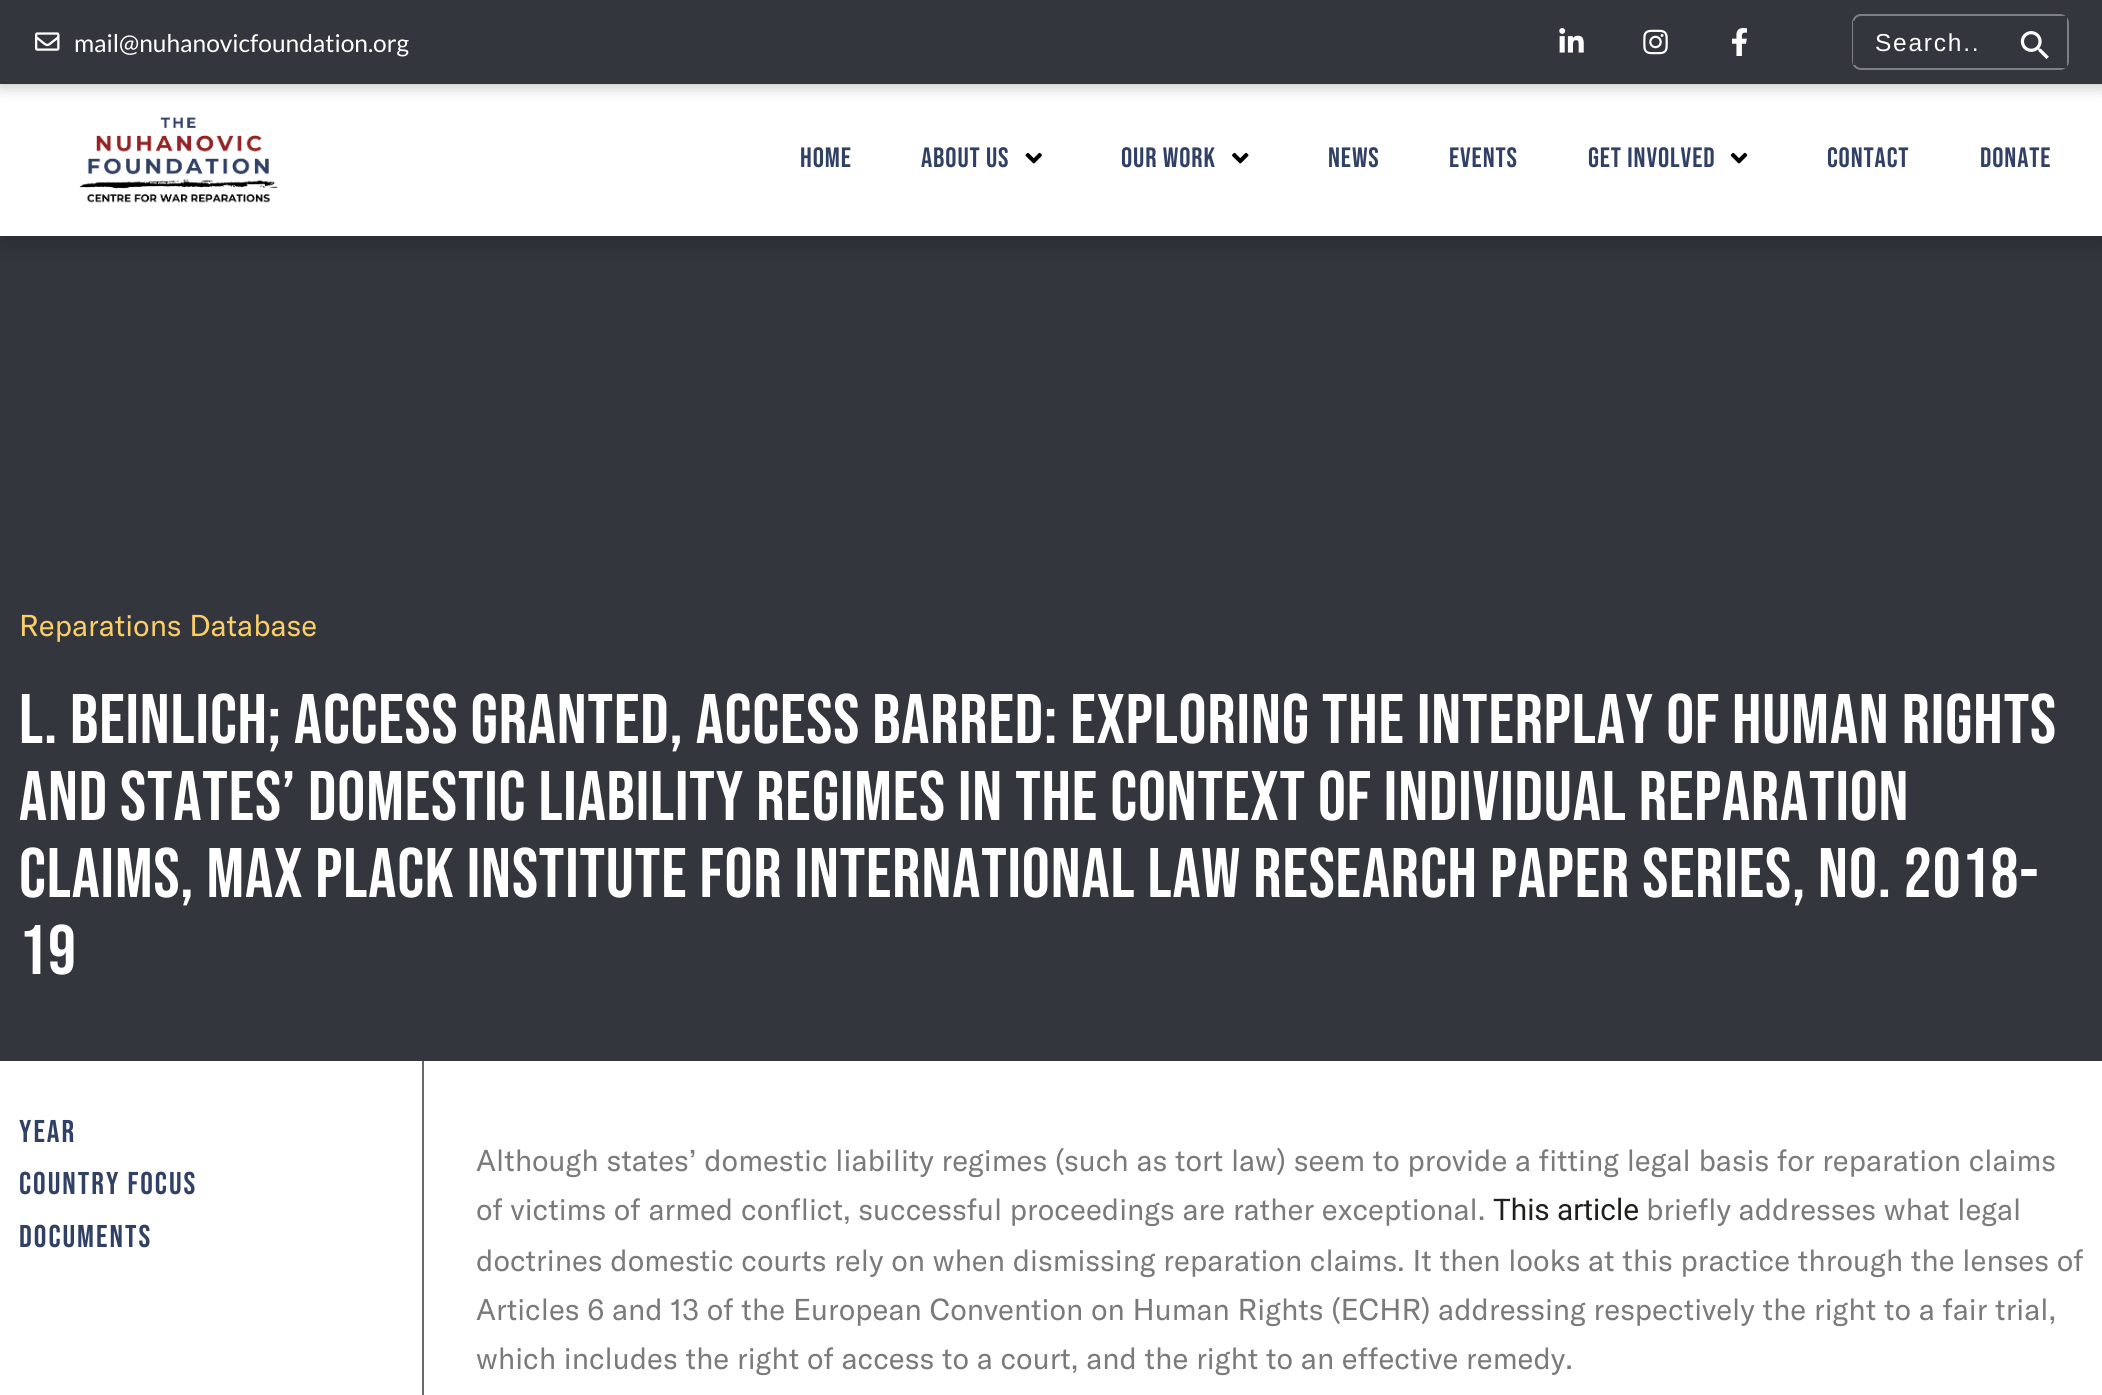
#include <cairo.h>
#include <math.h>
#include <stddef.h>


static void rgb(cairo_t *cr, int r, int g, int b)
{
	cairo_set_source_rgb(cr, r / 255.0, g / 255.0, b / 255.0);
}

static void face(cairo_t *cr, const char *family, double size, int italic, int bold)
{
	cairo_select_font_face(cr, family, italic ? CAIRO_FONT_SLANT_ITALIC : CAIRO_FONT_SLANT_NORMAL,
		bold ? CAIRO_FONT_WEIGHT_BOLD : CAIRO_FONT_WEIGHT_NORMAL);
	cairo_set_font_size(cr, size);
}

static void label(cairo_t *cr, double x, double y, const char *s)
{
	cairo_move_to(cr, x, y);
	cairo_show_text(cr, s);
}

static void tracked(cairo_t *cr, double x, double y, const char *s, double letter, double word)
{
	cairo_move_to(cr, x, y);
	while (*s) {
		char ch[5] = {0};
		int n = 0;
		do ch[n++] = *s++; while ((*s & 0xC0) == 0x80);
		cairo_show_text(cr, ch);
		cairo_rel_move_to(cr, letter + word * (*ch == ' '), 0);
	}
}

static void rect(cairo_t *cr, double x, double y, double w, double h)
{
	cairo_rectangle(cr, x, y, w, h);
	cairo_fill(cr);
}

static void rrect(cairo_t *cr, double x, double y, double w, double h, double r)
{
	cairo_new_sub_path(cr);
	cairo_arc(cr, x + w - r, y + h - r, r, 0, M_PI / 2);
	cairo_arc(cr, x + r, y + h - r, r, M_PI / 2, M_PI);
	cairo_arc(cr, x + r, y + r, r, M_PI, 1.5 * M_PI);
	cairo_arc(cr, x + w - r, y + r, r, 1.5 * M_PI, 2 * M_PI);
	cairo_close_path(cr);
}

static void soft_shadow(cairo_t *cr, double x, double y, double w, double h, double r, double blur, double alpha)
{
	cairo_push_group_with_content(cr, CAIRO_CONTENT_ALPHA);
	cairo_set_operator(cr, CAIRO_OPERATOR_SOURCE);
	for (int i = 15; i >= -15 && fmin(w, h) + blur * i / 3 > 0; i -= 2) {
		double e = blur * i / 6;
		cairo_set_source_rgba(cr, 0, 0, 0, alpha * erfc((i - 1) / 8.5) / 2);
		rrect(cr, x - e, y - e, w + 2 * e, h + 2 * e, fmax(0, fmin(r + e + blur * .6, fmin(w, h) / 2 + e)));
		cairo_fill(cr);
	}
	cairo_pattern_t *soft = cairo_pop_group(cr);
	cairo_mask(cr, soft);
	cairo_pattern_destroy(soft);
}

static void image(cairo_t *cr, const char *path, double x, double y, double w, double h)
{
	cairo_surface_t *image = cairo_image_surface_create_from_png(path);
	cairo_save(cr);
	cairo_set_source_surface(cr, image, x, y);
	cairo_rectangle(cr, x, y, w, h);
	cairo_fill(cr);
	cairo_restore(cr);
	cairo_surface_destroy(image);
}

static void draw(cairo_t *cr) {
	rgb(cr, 51, 54, 61);
	cairo_paint(cr);
	rgb(cr, 0, 0, 0);
	soft_shadow(cr, 0, 9, 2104, 236, 0, 14, 0.2);
	rgb(cr, 255, 255, 255);
	rect(cr, 0, 84, 2102, 152);
	rgb(cr, 0, 0, 0);
	soft_shadow(cr, 0, 0, 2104, 84, 0, 9, 0.3);
	rgb(cr, 51, 54, 61);
	rect(cr, 0, 0, 2102, 84);
	image(cr, "image0.png", 35, 32, 25, 19);
	face(cr, "Lato", 24.5, 0, 0);
	rgb(cr, 255, 255, 255);
	label(cr, 74, 52, "mail@nuhanovicfoundation.org");
	image(cr, "image1.png", 1559, 28, 25, 25);
	image(cr, "image2.png", 1643, 29, 25, 26);
	image(cr, "image3.png", 1732, 28, 15, 28);
	rrect(cr, 1853, 15, 215, 54, 8);
	rgb(cr, 127, 128, 132);
	cairo_stroke(cr);
	rgb(cr, 51, 54, 61);
	rect(cr, 1853, 21, 3, 44);
	face(cr, "Liberation Sans", 24.5, 0, 0);
	rgb(cr, 255, 255, 255);
	tracked(cr, 1875, 51, "Search..", 1.75, 0);
	rgb(cr, 51, 54, 61);
	rect(cr, 2060, 16, 7, 52);
	image(cr, "image4.png", 2020, 31, 29, 28);
	image(cr, "image5.png", 79, 117, 199, 86);
	face(cr, "Bebas Neue", 28, 0, 0);
	rgb(cr, 49, 64, 101);
	tracked(cr, 800, 167, "HOME", 0.88, 0);
	tracked(cr, 921, 167, "ABOUT US", 0.88, 0);
	image(cr, "image6.png", 1025, 152, 17, 12);
	tracked(cr, 1121, 167, "OUR WORK", 0.88, 0);
	image(cr, "image7.png", 1232, 152, 17, 12);
	tracked(cr, 1328, 167, "NEWS", 0.88, 0);
	tracked(cr, 1449, 167, "EVENTS", 0.88, 0);
	tracked(cr, 1588, 167, "GET INVOLVED", 0.88, 0);
	image(cr, "image8.png", 1730, 152, 18, 12);
	tracked(cr, 1827, 167, "CONTACT", 0.88, 0);
	tracked(cr, 1980, 167, "DONATE", 0.88, 0);
	face(cr, "GT America", 29.75, 0, 0);
	rgb(cr, 251, 206, 103);
	label(cr, 19, 636, "Reparations Database");
	face(cr, "Bebas Neue", 70, 0, 0);
	rgb(cr, 255, 255, 255);
	tracked(cr, 19, 743, "L. BEINLICH; ACCESS GRANTED, ACCESS BARRED: EXPLORING THE INTERPLAY OF HUMAN RIGHTS", 0.88, 0);
	tracked(cr, 19, 820, "AND STATES’ DOMESTIC LIABILITY REGIMES IN THE CONTEXT OF INDIVIDUAL REPARATION", 0.88, 0);
	tracked(cr, 19, 897, "CLAIMS, MAX PLACK INSTITUTE FOR INTERNATIONAL LAW RESEARCH PAPER SERIES, NO. 2018-", 0.88, 0);
	tracked(cr, 19, 974, "19", 0.88, 0);
	rect(cr, 0, 1061, 2102, 334);
	face(cr, "Bebas Neue", 31.5, 0, 0);
	rgb(cr, 49, 64, 101);
	tracked(cr, 19, 1142, "YEAR", 2, 0);
	tracked(cr, 19, 1194, "COUNTRY FOCUS", 2, 0);
	tracked(cr, 19, 1247, "DOCUMENTS", 2, 0);
	rgb(cr, 106, 106, 106);
	rect(cr, 422, 1061, 2, 334);
	face(cr, "GT America", 29.75, 0, 0);
	rgb(cr, 122, 122, 122);
	label(cr, 476, 1171, "Although states’ domestic liability regimes (such as tort law) seem to provide a fitting legal basis for reparation claims");
	label(cr, 476, 1220, "of victims of armed conflict, successful proceedings are rather exceptional.");
	face(cr, "Roboto", 29.75, 0, 0);
	rgb(cr, 32, 31, 29);
	label(cr, 1493, 1220, "This article");
	face(cr, "GT America", 29.75, 0, 0);
	rgb(cr, 122, 122, 122);
	label(cr, 1646, 1220, "briefly addresses what legal");
	label(cr, 476, 1271, "doctrines domestic courts rely on when dismissing reparation claims. It then looks at this practice through the lenses of");
	label(cr, 476, 1320, "Articles 6 and 13 of the European Convention on Human Rights (ECHR) addressing respectively the right to a fair trial,");
	label(cr, 476, 1369, "which includes the right of access to a court, and the right to an effective remedy.");
}

int main(void) {
	cairo_surface_t *surface = cairo_image_surface_create(CAIRO_FORMAT_RGB24, 2102, 1395);
	cairo_t *cr = cairo_create(surface);
	cairo_font_options_t *options = cairo_font_options_create();
	cairo_font_options_set_hint_metrics(options, CAIRO_HINT_METRICS_OFF);
	cairo_font_options_set_hint_style(options, CAIRO_HINT_STYLE_NONE);
	cairo_set_font_options(cr, options);
	cairo_set_miter_limit(cr, 4);
	draw(cr);
	cairo_surface_write_to_png(surface, "render.png");
	cairo_font_options_destroy(options);
	cairo_destroy(cr);
	cairo_surface_destroy(surface);
	return 0;
}
